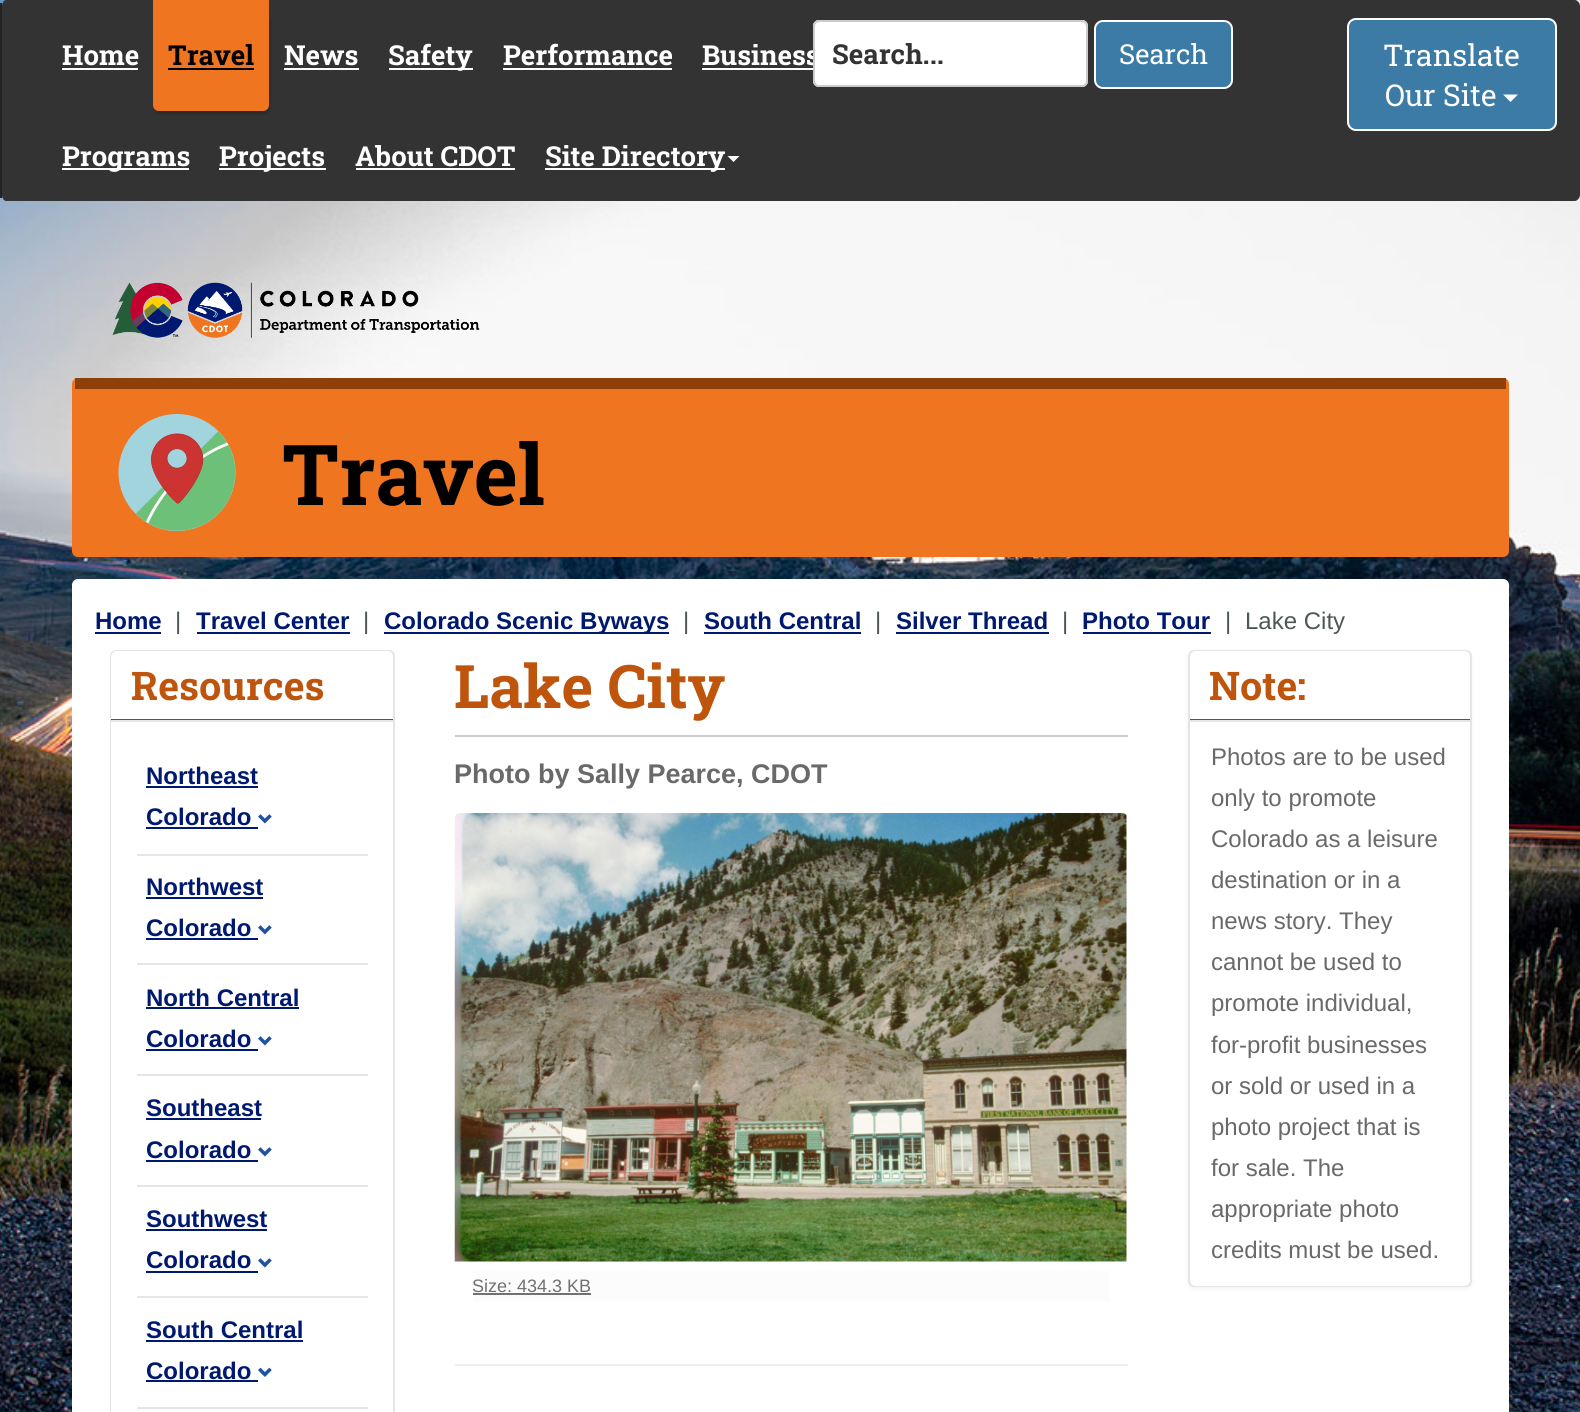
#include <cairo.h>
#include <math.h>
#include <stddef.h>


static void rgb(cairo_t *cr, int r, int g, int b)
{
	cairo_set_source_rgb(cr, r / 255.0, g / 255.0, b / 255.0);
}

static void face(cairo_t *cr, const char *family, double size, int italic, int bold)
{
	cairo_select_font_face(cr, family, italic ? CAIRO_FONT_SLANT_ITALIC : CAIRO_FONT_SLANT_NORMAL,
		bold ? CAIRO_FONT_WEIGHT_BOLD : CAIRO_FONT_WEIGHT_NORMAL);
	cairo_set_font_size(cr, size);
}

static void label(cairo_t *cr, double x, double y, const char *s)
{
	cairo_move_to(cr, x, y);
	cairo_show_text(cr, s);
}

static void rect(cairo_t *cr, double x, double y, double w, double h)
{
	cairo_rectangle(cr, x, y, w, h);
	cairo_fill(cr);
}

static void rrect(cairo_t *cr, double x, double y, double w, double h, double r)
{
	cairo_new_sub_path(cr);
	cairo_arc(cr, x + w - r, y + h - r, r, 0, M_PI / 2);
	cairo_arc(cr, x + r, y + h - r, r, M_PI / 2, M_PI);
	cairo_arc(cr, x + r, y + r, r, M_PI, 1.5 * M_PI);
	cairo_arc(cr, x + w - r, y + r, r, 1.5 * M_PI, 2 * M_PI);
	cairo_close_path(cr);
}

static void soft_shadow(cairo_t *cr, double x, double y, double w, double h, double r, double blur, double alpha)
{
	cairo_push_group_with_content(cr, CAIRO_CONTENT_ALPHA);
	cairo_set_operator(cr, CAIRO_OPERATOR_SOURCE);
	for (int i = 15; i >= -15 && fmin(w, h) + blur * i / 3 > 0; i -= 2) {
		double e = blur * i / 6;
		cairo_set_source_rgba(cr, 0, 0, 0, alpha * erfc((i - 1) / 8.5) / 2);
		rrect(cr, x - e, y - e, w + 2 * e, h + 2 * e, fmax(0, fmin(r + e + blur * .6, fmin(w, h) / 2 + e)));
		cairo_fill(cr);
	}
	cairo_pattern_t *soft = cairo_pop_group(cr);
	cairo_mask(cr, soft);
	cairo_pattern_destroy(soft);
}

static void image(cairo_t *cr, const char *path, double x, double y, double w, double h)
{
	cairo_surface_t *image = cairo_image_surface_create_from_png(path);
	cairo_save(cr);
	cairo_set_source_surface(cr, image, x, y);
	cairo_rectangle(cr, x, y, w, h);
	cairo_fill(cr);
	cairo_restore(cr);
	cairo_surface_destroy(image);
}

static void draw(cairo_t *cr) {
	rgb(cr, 255, 255, 255);
	cairo_paint(cr);
	image(cr, "image0.png", 0, 0, 1580, 1412);
	rgb(cr, 51, 51, 51);
	cairo_new_path(cr);
	cairo_move_to(cr, 6, 0);
	cairo_line_to(cr, 1575, 0);
	cairo_curve_to(cr, 1577, 0, 1580, 3, 1580, 6);
	cairo_line_to(cr, 1580, 195);
	cairo_curve_to(cr, 1580, 198, 1577, 201, 1575, 201);
	cairo_line_to(cr, 6, 201);
	cairo_curve_to(cr, 4, 201, 2, 198, 2, 195);
	cairo_line_to(cr, 2, 6);
	cairo_curve_to(cr, 2, 3, 4, 0, 6, 0);
	cairo_close_path(cr);
	cairo_fill(cr);
	rgb(cr, 34, 34, 34);
	rect(cr, 0, 3, 2, 195);
	face(cr, "Roboto Slab", 27.5, 0, 1);
	rgb(cr, 255, 255, 255);
	label(cr, 62, 65, "Home");
	rect(cr, 62, 68, 76, 2);
	rgb(cr, 239, 117, 33);
	rect(cr, 153, 0, 116, 11);
	rgb(cr, 0, 0, 0);
	soft_shadow(cr, 155, 14, 115, 100, 6, 1.5, 0.2);
	rgb(cr, 239, 117, 33);
	cairo_new_path(cr);
	cairo_move_to(cr, 153, 11);
	cairo_line_to(cr, 269, 11);
	cairo_line_to(cr, 269, 105);
	cairo_curve_to(cr, 269, 108.5, 266.5, 111, 263, 111);
	cairo_line_to(cr, 159, 111);
	cairo_curve_to(cr, 155.5, 111, 153, 108.5, 153, 105);
	cairo_close_path(cr);
	cairo_fill(cr);
	rgb(cr, 0, 0, 0);
	label(cr, 168, 65, "Travel");
	rect(cr, 168, 68, 86, 2);
	rgb(cr, 255, 255, 255);
	label(cr, 284, 65, "News");
	rect(cr, 284, 68, 75, 2);
	rect(cr, 389, 68, 84, 2);
	label(cr, 388, 65, "Safety");
	label(cr, 503, 65, "Performance");
	rect(cr, 503, 68, 169, 2);
	label(cr, 702, 65, "Business");
	rect(cr, 702, 68, 117, 2);
	rect(cr, 62, 168, 127, 2);
	label(cr, 62, 166, "Programs");
	rect(cr, 219, 168, 107, 2);
	label(cr, 219, 166, "Projects");
	label(cr, 355, 166, "About CDOT");
	rect(cr, 356, 168, 159, 2);
	rect(cr, 545, 168, 180, 2);
	label(cr, 545, 166, "Site Directory");
	cairo_new_path(cr);
	cairo_move_to(cr, 727.5, 156);
	cairo_line_to(cr, 739.5, 156);
	cairo_line_to(cr, 733.5, 162);
	cairo_close_path(cr);
	cairo_fill(cr);
	rrect(cr, 813, 20, 275, 67, 6);
	cairo_fill(cr);
	rgb(cr, 236, 236, 236);
	cairo_new_path(cr);
	cairo_move_to(cr, 819, 22);
	cairo_line_to(cr, 1082, 22);
	cairo_curve_to(cr, 1084, 22, 1086, 25, 1086, 27);
	cairo_line_to(cr, 1086, 26);
	cairo_curve_to(cr, 1086, 23, 1084, 21, 1081, 21);
	cairo_line_to(cr, 820, 21);
	cairo_curve_to(cr, 818, 21, 816, 22, 815, 24);
	cairo_curve_to(cr, 816, 23, 818, 22, 819, 22);
	cairo_close_path(cr);
	cairo_fill(cr);
	rrect(cr, 814, 21, 273, 65, 5);
	rgb(cr, 204, 204, 204);
	cairo_stroke(cr);
	rgb(cr, 51, 51, 51);
	label(cr, 832, 64, "Search...");
	rgb(cr, 59, 123, 165);
	rrect(cr, 1095, 21, 137, 67, 8);
	cairo_fill_preserve(cr);
	rgb(cr, 255, 255, 255);
	cairo_stroke(cr);
	face(cr, "Roboto Slab", 27.5, 0, 0);
	label(cr, 1119, 64, "Search");
	rgb(cr, 59, 123, 165);
	rrect(cr, 1348, 19, 208, 111, 8);
	cairo_fill_preserve(cr);
	rgb(cr, 255, 255, 255);
	cairo_stroke(cr);
	face(cr, "Roboto Slab", 30, 0, 0);
	label(cr, 1383, 66, "Translate");
	label(cr, 1385, 106, "Our Site");
	cairo_new_path(cr);
	cairo_move_to(cr, 1503, 94.5);
	cairo_line_to(cr, 1518, 94.5);
	cairo_line_to(cr, 1510.5, 102);
	cairo_close_path(cr);
	cairo_fill(cr);
	image(cr, "image1.png", 112, 282, 368, 56);
	rgb(cr, 239, 117, 33);
	rrect(cr, 72, 378, 1437, 179, 6);
	cairo_fill(cr);
	image(cr, "image2.png", 118, 414, 118, 117);
	rgb(cr, 143, 63, 10);
	rect(cr, 75, 378, 1431, 11);
	face(cr, "Roboto Slab", 84, 0, 1);
	rgb(cr, 0, 0, 0);
	label(cr, 282, 505, "Travel");
	rgb(cr, 255, 255, 255);
	rrect(cr, 72, 579, 1437, 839, 6);
	cairo_fill(cr);
	face(cr, "Liberation Sans", 24, 0, 1);
	rgb(cr, 0, 25, 112);
	label(cr, 95, 629, "Home");
	rect(cr, 95, 632, 66, 2);
	face(cr, "Liberation Sans", 24, 0, 0);
	rgb(cr, 78, 87, 87);
	label(cr, 175, 629, "|");
	face(cr, "Liberation Sans", 24, 0, 1);
	rgb(cr, 0, 25, 112);
	label(cr, 196, 629, "Travel Center");
	rect(cr, 197, 632, 153, 2);
	face(cr, "Liberation Sans", 24, 0, 0);
	rgb(cr, 78, 87, 87);
	label(cr, 363, 629, "|");
	rgb(cr, 0, 25, 112);
	rect(cr, 384, 632, 285, 2);
	face(cr, "Liberation Sans", 24, 0, 1);
	label(cr, 384, 629, "Colorado Scenic Byways");
	face(cr, "Liberation Sans", 24, 0, 0);
	rgb(cr, 78, 87, 87);
	label(cr, 683, 629, "|");
	face(cr, "Liberation Sans", 24, 0, 1);
	rgb(cr, 0, 25, 112);
	label(cr, 704, 629, "South Central");
	rect(cr, 704, 632, 157, 2);
	face(cr, "Liberation Sans", 24, 0, 0);
	rgb(cr, 78, 87, 87);
	label(cr, 875, 629, "|");
	face(cr, "Liberation Sans", 24, 0, 1);
	rgb(cr, 0, 25, 112);
	label(cr, 896, 629, "Silver Thread");
	rect(cr, 896, 632, 153, 2);
	face(cr, "Liberation Sans", 24, 0, 0);
	rgb(cr, 78, 87, 87);
	label(cr, 1062, 629, "|");
	face(cr, "Liberation Sans", 24, 0, 1);
	rgb(cr, 0, 25, 112);
	label(cr, 1082, 629, "Photo Tour");
	rect(cr, 1083, 632, 128, 2);
	face(cr, "Liberation Sans", 24, 0, 0);
	rgb(cr, 78, 87, 87);
	label(cr, 1225, 629, "|");
	label(cr, 1245, 629, "Lake City");
	rrect(cr, 111, 651, 283, 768, 5);
	rgb(cr, 229, 229, 229);
	cairo_stroke(cr);
	rgb(cr, 255, 255, 255);
	cairo_new_path(cr);
	cairo_move_to(cr, 117, 651);
	cairo_line_to(cr, 387, 651);
	cairo_curve_to(cr, 390.5, 651, 393, 653.5, 393, 657);
	cairo_line_to(cr, 393, 720);
	cairo_line_to(cr, 111, 720);
	cairo_line_to(cr, 111, 657);
	cairo_curve_to(cr, 111, 653.5, 113.5, 651, 117, 651);
	cairo_close_path(cr);
	cairo_fill(cr);
	rgb(cr, 78, 87, 87);
	rect(cr, 111, 719, 282, 1);
	face(cr, "Roboto Slab", 39.5, 0, 1);
	rgb(cr, 191, 84, 13);
	label(cr, 131, 700, "Resources");
	rgb(cr, 255, 255, 255);
	rect(cr, 111, 722, 1, 690);
	rgb(cr, 229, 229, 229);
	rect(cr, 111, 720, 282, 2);
	face(cr, "Liberation Sans", 24, 0, 1);
	rgb(cr, 0, 25, 112);
	label(cr, 146, 784, "Northeast");
	rect(cr, 146, 786, 112, 2);
	label(cr, 146, 825, "Colorado");
	rect(cr, 146, 827, 112, 2);
	image(cr, "image3.png", 258, 814, 14, 10);
	rgb(cr, 229, 229, 229);
	rect(cr, 137, 854, 231, 2);
	rgb(cr, 0, 25, 112);
	label(cr, 146, 895, "Northwest");
	rect(cr, 146, 897, 117, 2);
	label(cr, 146, 936, "Colorado");
	rect(cr, 146, 938, 112, 2);
	image(cr, "image3.png", 258, 925, 14, 10);
	rgb(cr, 229, 229, 229);
	rect(cr, 137, 963, 231, 2);
	rgb(cr, 0, 25, 112);
	label(cr, 146, 1006, "North Central");
	rect(cr, 146, 1007, 153, 2);
	label(cr, 146, 1047, "Colorado");
	rect(cr, 146, 1049, 112, 2);
	image(cr, "image3.png", 258, 1036, 14, 10);
	rgb(cr, 229, 229, 229);
	rect(cr, 137, 1074, 231, 2);
	rgb(cr, 0, 25, 112);
	label(cr, 146, 1116, "Southeast");
	rect(cr, 146, 1118, 115, 2);
	label(cr, 146, 1158, "Colorado");
	rect(cr, 146, 1160, 112, 2);
	image(cr, "image3.png", 258, 1147, 14, 10);
	rgb(cr, 229, 229, 229);
	rect(cr, 137, 1185, 231, 2);
	rgb(cr, 0, 25, 112);
	label(cr, 146, 1227, "Southwest");
	rect(cr, 146, 1229, 121, 2);
	label(cr, 146, 1268, "Colorado");
	rect(cr, 146, 1271, 112, 2);
	image(cr, "image3.png", 258, 1258, 14, 10);
	rgb(cr, 229, 229, 229);
	rect(cr, 137, 1296, 231, 2);
	rgb(cr, 0, 25, 112);
	label(cr, 146, 1338, "South Central");
	rect(cr, 146, 1340, 157, 2);
	label(cr, 146, 1379, "Colorado");
	rect(cr, 146, 1380, 112, 2);
	image(cr, "image4.png", 258, 1367, 14, 10);
	rgb(cr, 229, 229, 229);
	rect(cr, 137, 1407, 231, 2);
	rgb(cr, 204, 204, 204);
	rect(cr, 455, 735, 673, 2);
	face(cr, "Roboto Slab", 60, 0, 1);
	rgb(cr, 191, 84, 13);
	label(cr, 454, 708, "Lake City");
	face(cr, "Liberation Sans", 27, 0, 1);
	rgb(cr, 105, 105, 105);
	label(cr, 454, 783, "Photo by Sally Pearce, CDOT");
	image(cr, "image5.png", 454, 813, 673, 449);
	rgb(cr, 252, 252, 253);
	rect(cr, 473, 1271, 637, 31);
	face(cr, "Liberation Sans", 18, 0, 0);
	rgb(cr, 113, 113, 113);
	label(cr, 472, 1292, "Size: 434.3 KB");
	rect(cr, 473, 1293, 118, 2);
	rgb(cr, 238, 238, 238);
	rect(cr, 455, 1364, 673, 2);
	rgb(cr, 0, 0, 0);
	soft_shadow(cr, 1188, 651, 284, 638, 6, 2, 0.05);
	rrect(cr, 1189, 651, 282, 635, 5);
	rgb(cr, 229, 229, 229);
	cairo_stroke(cr);
	rgb(cr, 255, 255, 255);
	cairo_new_path(cr);
	cairo_move_to(cr, 1196, 651);
	cairo_line_to(cr, 1464, 651);
	cairo_curve_to(cr, 1467.5, 651, 1470, 653.5, 1470, 657);
	cairo_line_to(cr, 1470, 720);
	cairo_line_to(cr, 1190, 720);
	cairo_line_to(cr, 1190, 657);
	cairo_curve_to(cr, 1190, 653.5, 1192.5, 651, 1196, 651);
	cairo_close_path(cr);
	cairo_fill(cr);
	rgb(cr, 78, 87, 87);
	rect(cr, 1190, 719, 280, 1);
	face(cr, "Roboto Slab", 39.5, 0, 1);
	rgb(cr, 191, 84, 13);
	label(cr, 1209, 700, "Note:");
	rgb(cr, 255, 255, 255);
	cairo_new_path(cr);
	cairo_move_to(cr, 1190, 720);
	cairo_line_to(cr, 1470, 720);
	cairo_line_to(cr, 1470, 1280);
	cairo_curve_to(cr, 1470, 1283.5, 1467.5, 1286, 1464, 1286);
	cairo_line_to(cr, 1196, 1286);
	cairo_curve_to(cr, 1192.5, 1286, 1190, 1283.5, 1190, 1280);
	cairo_close_path(cr);
	cairo_fill(cr);
	rgb(cr, 229, 229, 229);
	rect(cr, 1190, 720, 280, 2);
	face(cr, "Liberation Sans", 24, 0, 0);
	rgb(cr, 105, 105, 105);
	label(cr, 1211, 765, "Photos are to be used");
	label(cr, 1211, 806, "only to promote");
	label(cr, 1211, 847, "Colorado as a leisure");
	label(cr, 1211, 888, "destination or in a");
	label(cr, 1211, 929, "news story. They");
	label(cr, 1211, 970, "cannot be used to");
	label(cr, 1211, 1011, "promote individual,");
	label(cr, 1211, 1053, "for-profit businesses");
	label(cr, 1211, 1094, "or sold or used in a");
	label(cr, 1211, 1135, "photo project that is");
	label(cr, 1211, 1176, "for sale. The");
	label(cr, 1211, 1217, "appropriate photo");
	label(cr, 1211, 1258, "credits must be used.");
}

int main(void) {
	cairo_surface_t *surface = cairo_image_surface_create(CAIRO_FORMAT_RGB24, 1580, 1412);
	cairo_t *cr = cairo_create(surface);
	cairo_font_options_t *options = cairo_font_options_create();
	cairo_font_options_set_hint_metrics(options, CAIRO_HINT_METRICS_OFF);
	cairo_font_options_set_hint_style(options, CAIRO_HINT_STYLE_NONE);
	cairo_set_font_options(cr, options);
	cairo_set_miter_limit(cr, 4);
	draw(cr);
	cairo_surface_write_to_png(surface, "render.png");
	cairo_font_options_destroy(options);
	cairo_destroy(cr);
	cairo_surface_destroy(surface);
	return 0;
}
